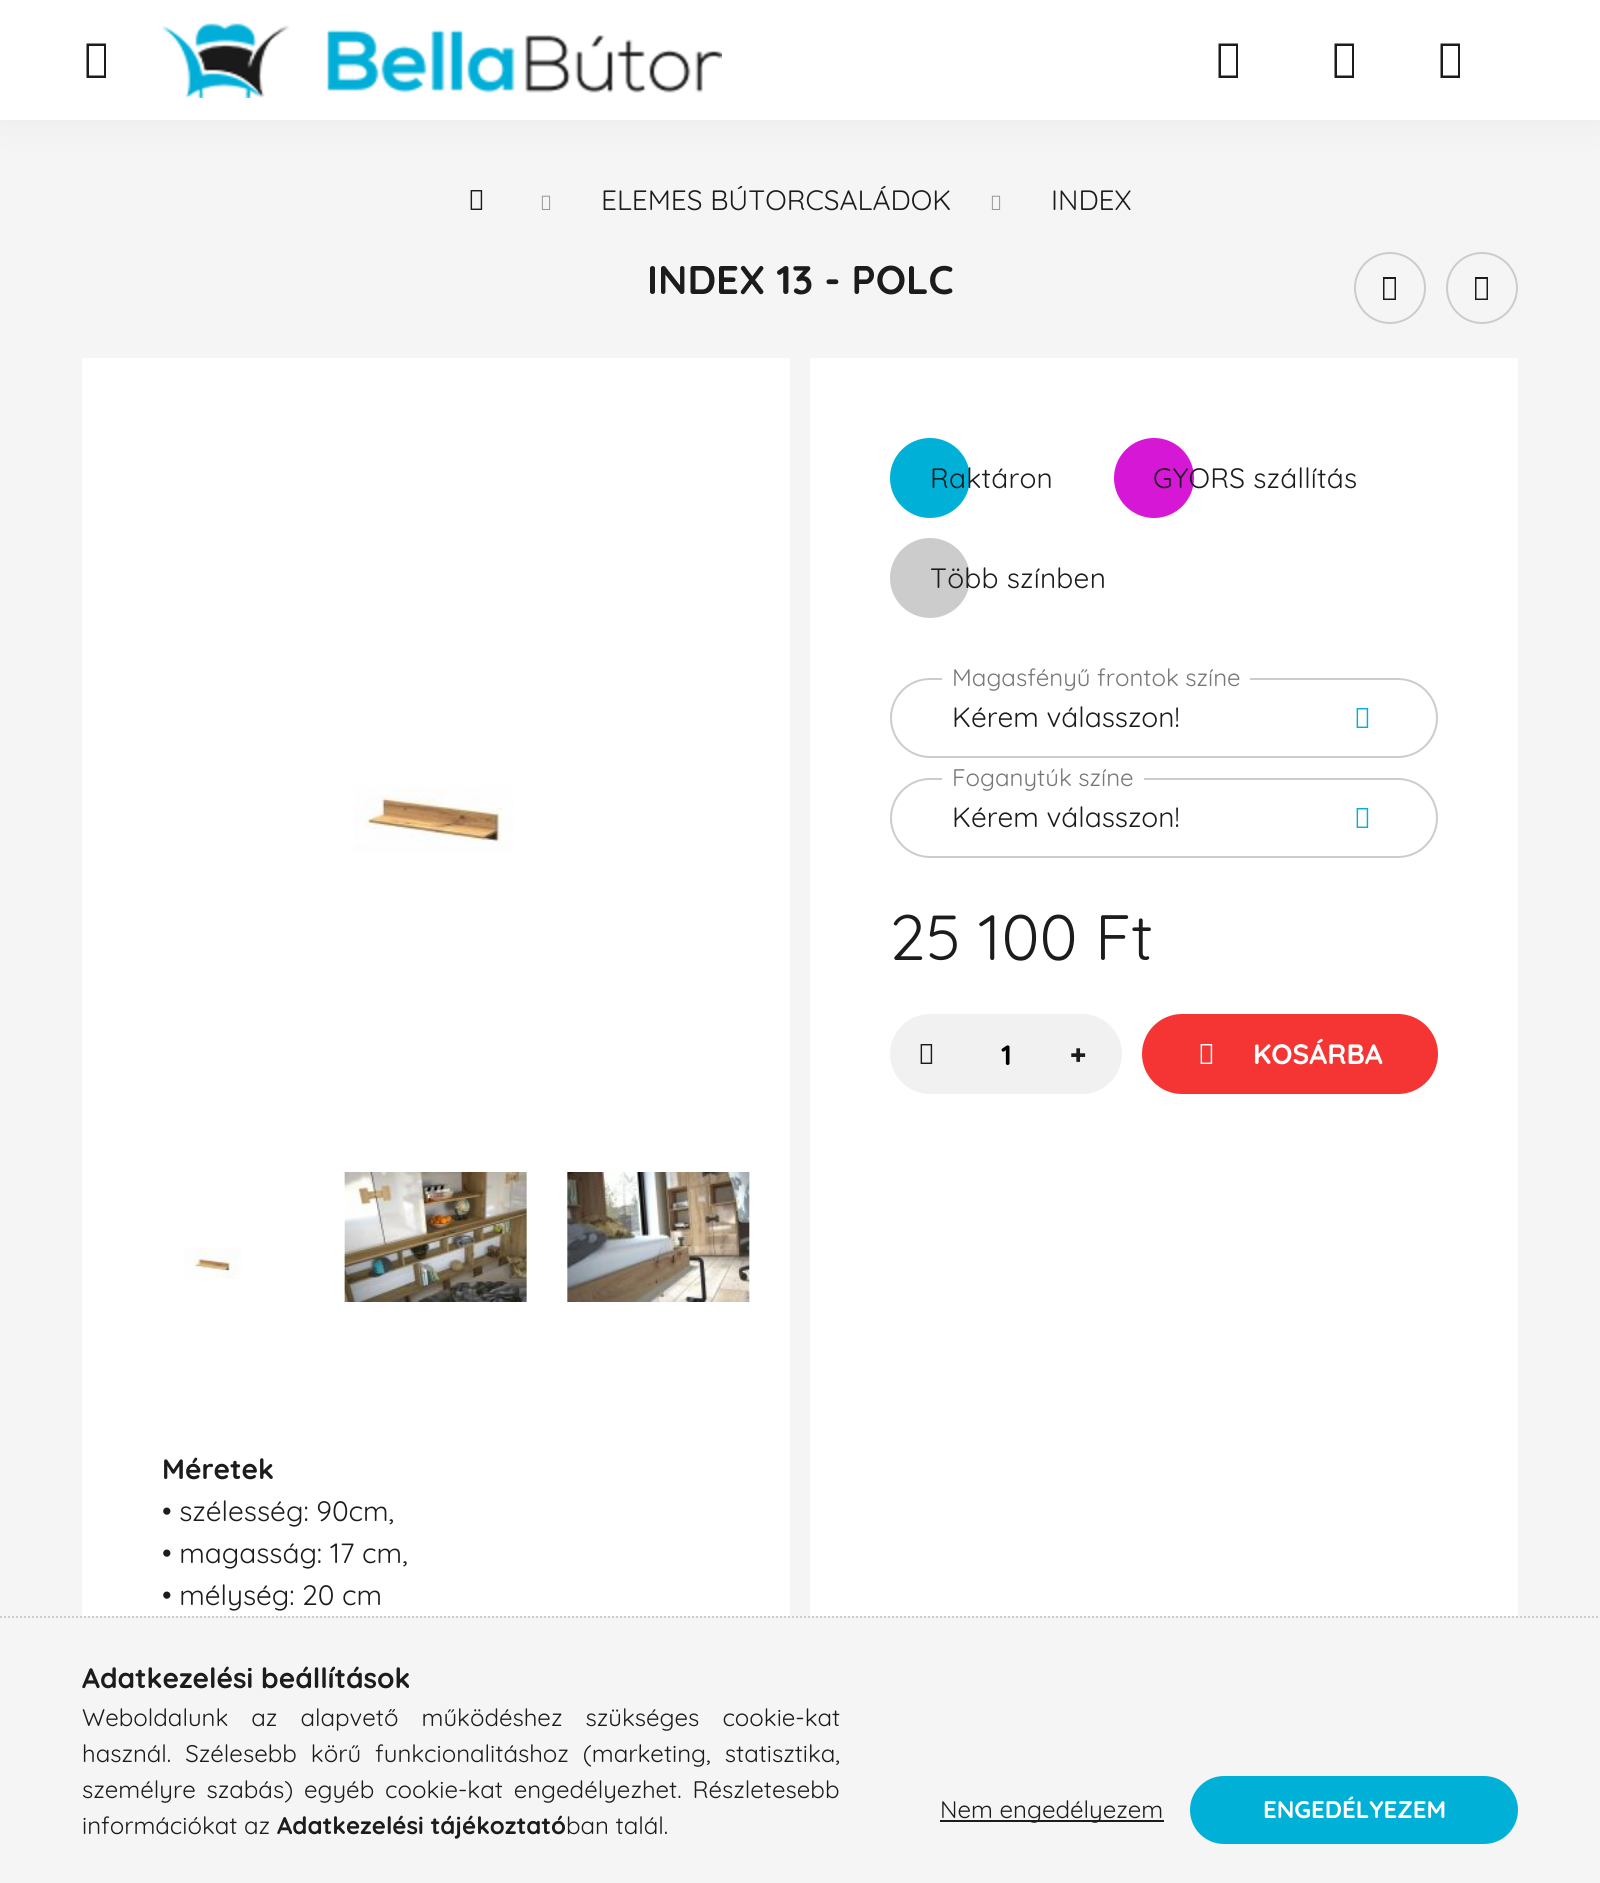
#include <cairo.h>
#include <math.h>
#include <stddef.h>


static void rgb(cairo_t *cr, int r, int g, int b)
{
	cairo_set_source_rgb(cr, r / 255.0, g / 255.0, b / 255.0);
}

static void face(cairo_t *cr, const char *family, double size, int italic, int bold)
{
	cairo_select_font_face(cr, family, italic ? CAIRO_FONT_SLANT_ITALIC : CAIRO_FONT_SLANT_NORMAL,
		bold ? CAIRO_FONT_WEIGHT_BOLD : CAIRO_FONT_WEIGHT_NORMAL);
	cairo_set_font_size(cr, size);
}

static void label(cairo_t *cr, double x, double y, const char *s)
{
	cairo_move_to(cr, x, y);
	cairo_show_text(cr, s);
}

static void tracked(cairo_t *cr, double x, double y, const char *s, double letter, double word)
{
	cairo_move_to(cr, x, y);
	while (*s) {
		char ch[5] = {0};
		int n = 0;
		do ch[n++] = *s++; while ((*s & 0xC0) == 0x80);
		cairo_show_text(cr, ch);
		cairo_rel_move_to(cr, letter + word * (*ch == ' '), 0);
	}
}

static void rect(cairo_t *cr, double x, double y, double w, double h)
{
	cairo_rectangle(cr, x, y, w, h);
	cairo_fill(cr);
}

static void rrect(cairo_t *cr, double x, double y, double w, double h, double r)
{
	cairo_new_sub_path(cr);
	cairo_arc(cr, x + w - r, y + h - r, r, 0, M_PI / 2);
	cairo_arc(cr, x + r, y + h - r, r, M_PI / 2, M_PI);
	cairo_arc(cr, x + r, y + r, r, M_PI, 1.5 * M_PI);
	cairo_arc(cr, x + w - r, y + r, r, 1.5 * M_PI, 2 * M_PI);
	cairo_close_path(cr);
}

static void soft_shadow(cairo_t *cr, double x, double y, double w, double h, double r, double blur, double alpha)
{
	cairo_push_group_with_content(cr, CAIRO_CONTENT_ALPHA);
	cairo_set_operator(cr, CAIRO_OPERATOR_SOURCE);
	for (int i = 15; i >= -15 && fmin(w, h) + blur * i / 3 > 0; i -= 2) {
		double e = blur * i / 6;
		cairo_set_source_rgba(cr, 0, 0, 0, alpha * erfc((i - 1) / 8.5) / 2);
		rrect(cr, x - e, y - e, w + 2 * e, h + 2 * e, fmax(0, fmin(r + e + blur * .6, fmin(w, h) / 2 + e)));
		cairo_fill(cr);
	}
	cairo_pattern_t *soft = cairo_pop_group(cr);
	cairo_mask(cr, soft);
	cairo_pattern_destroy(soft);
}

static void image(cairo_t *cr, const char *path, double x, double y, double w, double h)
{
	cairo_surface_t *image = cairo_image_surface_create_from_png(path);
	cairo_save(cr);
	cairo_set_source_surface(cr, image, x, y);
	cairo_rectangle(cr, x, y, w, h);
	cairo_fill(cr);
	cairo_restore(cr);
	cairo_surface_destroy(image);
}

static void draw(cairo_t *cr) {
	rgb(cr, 245, 245, 245);
	cairo_paint(cr);
	rgb(cr, 0, 0, 0);
	soft_shadow(cr, 0, 0, 1600, 120, 0, 20, 0.05);
	rgb(cr, 255, 255, 255);
	rect(cr, 0, 0, 1600, 120);
	rgb(cr, 28, 28, 28);
	cairo_new_path(cr);
	cairo_move_to(cr, 86.5, 78);
	cairo_line_to(cr, 86.5, 43.5);
	cairo_line_to(cr, 106, 43.5);
	cairo_line_to(cr, 106, 78);
	cairo_close_path(cr);
	cairo_move_to(cr, 89, 75.5);
	cairo_line_to(cr, 104, 75.5);
	cairo_line_to(cr, 104, 46);
	cairo_line_to(cr, 89, 46);
	cairo_close_path(cr);
	cairo_fill(cr);
	image(cr, "image0.png", 162, 23, 560, 75);
	cairo_new_path(cr);
	cairo_move_to(cr, 1218.5, 78);
	cairo_line_to(cr, 1218.5, 43.5);
	cairo_line_to(cr, 1238, 43.5);
	cairo_line_to(cr, 1238, 78);
	cairo_close_path(cr);
	cairo_move_to(cr, 1221, 75.5);
	cairo_line_to(cr, 1236, 75.5);
	cairo_line_to(cr, 1236, 46);
	cairo_line_to(cr, 1221, 46);
	cairo_close_path(cr);
	cairo_fill(cr);
	cairo_new_path(cr);
	cairo_move_to(cr, 1334.5, 78);
	cairo_line_to(cr, 1334.5, 43.5);
	cairo_line_to(cr, 1354, 43.5);
	cairo_line_to(cr, 1354, 78);
	cairo_close_path(cr);
	cairo_move_to(cr, 1337, 75.5);
	cairo_line_to(cr, 1352, 75.5);
	cairo_line_to(cr, 1352, 46);
	cairo_line_to(cr, 1337, 46);
	cairo_close_path(cr);
	cairo_fill(cr);
	cairo_new_path(cr);
	cairo_move_to(cr, 1440.5, 78);
	cairo_line_to(cr, 1440.5, 43.5);
	cairo_line_to(cr, 1460, 43.5);
	cairo_line_to(cr, 1460, 78);
	cairo_close_path(cr);
	cairo_move_to(cr, 1443, 75.5);
	cairo_line_to(cr, 1458, 75.5);
	cairo_line_to(cr, 1458, 46);
	cairo_line_to(cr, 1443, 46);
	cairo_close_path(cr);
	cairo_fill(cr);
	image(cr, "image1.png", 470, 190, 13, 20);
	image(cr, "image2.png", 541, 195, 10, 15);
	face(cr, "Quicksand", 28, 0, 0);
	label(cr, 601, 210, "ELEMES BÚTORCSALÁDOK");
	image(cr, "image2.png", 991, 195, 10, 15);
	label(cr, 1051, 210, "INDEX");
	face(cr, "Quicksand", 40, 0, 1);
	label(cr, 647, 294, "INDEX 13 - POLC");
	cairo_new_path(cr);
	cairo_arc(cr, 1390, 288, 35, 0, 2 * M_PI);
	rgb(cr, 204, 204, 204);
	cairo_stroke(cr);
	rgb(cr, 28, 28, 28);
	cairo_new_path(cr);
	cairo_move_to(cr, 1383, 300);
	cairo_line_to(cr, 1383, 277);
	cairo_line_to(cr, 1396, 277);
	cairo_line_to(cr, 1396, 300);
	cairo_close_path(cr);
	cairo_move_to(cr, 1384.5, 298.5);
	cairo_line_to(cr, 1394.5, 298.5);
	cairo_line_to(cr, 1394.5, 279);
	cairo_line_to(cr, 1384.5, 279);
	cairo_close_path(cr);
	cairo_fill(cr);
	cairo_arc(cr, 1482, 288, 35, 0, 2 * M_PI);
	rgb(cr, 204, 204, 204);
	cairo_stroke(cr);
	rgb(cr, 28, 28, 28);
	cairo_new_path(cr);
	cairo_move_to(cr, 1475, 300);
	cairo_line_to(cr, 1475, 277);
	cairo_line_to(cr, 1488, 277);
	cairo_line_to(cr, 1488, 300);
	cairo_close_path(cr);
	cairo_move_to(cr, 1476.5, 298.5);
	cairo_line_to(cr, 1486.5, 298.5);
	cairo_line_to(cr, 1486.5, 279);
	cairo_line_to(cr, 1476.5, 279);
	cairo_close_path(cr);
	cairo_fill(cr);
	rgb(cr, 255, 255, 255);
	rect(cr, 810, 358, 708, 1258);
	rgb(cr, 0, 176, 215);
	cairo_arc(cr, 930, 478, 40, 0, 2 * M_PI);
	cairo_fill(cr);
	face(cr, "Quicksand", 28, 0, 0);
	rgb(cr, 28, 28, 28);
	tracked(cr, 930, 488, "Raktáron", 0.25, 0);
	rgb(cr, 214, 23, 214);
	cairo_new_path(cr);
	cairo_arc(cr, 1154, 478, 40, 0, 2 * M_PI);
	cairo_fill(cr);
	rgb(cr, 28, 28, 28);
	tracked(cr, 1153, 488, "GYORS szállítás", 0.25, 0);
	rgb(cr, 204, 204, 204);
	cairo_new_path(cr);
	cairo_arc(cr, 930, 578, 40, 0, 2 * M_PI);
	cairo_fill(cr);
	rgb(cr, 28, 28, 28);
	tracked(cr, 930, 588, "Több színben", 0.25, 0);
	rrect(cr, 891, 679, 546, 78, 39);
	rgb(cr, 204, 204, 204);
	cairo_stroke(cr);
	rgb(cr, 255, 255, 255);
	cairo_new_path(cr);
	cairo_move_to(cr, 954, 660);
	cairo_line_to(cr, 1238, 660);
	cairo_curve_to(cr, 1244.5, 660, 1250, 665.5, 1250, 672);
	cairo_line_to(cr, 1250, 696);
	cairo_line_to(cr, 942, 696);
	cairo_line_to(cr, 942, 672);
	cairo_curve_to(cr, 942, 665.5, 947.5, 660, 954, 660);
	cairo_close_path(cr);
	cairo_fill(cr);
	face(cr, "Quicksand", 24, 0, 0);
	rgb(cr, 119, 119, 119);
	label(cr, 952, 686, "Magasfényű frontok színe");
	face(cr, "Quicksand", 28, 0, 0);
	rgb(cr, 28, 28, 28);
	label(cr, 952, 727, "Kérem válasszon!");
	image(cr, "image3.png", 1356, 708, 13, 20);
	rrect(cr, 891, 779, 546, 78, 39);
	rgb(cr, 204, 204, 204);
	cairo_stroke(cr);
	rgb(cr, 255, 255, 255);
	cairo_new_path(cr);
	cairo_move_to(cr, 954, 760);
	cairo_line_to(cr, 1132, 760);
	cairo_curve_to(cr, 1138.5, 760, 1144, 765.5, 1144, 772);
	cairo_line_to(cr, 1144, 796);
	cairo_line_to(cr, 942, 796);
	cairo_line_to(cr, 942, 772);
	cairo_curve_to(cr, 942, 765.5, 947.5, 760, 954, 760);
	cairo_close_path(cr);
	cairo_fill(cr);
	face(cr, "Quicksand", 24, 0, 0);
	rgb(cr, 119, 119, 119);
	label(cr, 952, 786, "Foganytúk színe");
	face(cr, "Quicksand", 28, 0, 0);
	rgb(cr, 28, 28, 28);
	label(cr, 952, 827, "Kérem válasszon!");
	image(cr, "image3.png", 1356, 808, 13, 20);
	face(cr, "Quicksand", 64, 0, 0);
	label(cr, 890, 960, "25 100 Ft");
	rgb(cr, 241, 241, 241);
	rrect(cr, 890, 1014, 232, 80, 40);
	cairo_fill(cr);
	image(cr, "image4.png", 920, 1044, 13, 20);
	face(cr, "Quicksand", 28, 0, 1);
	rgb(cr, 0, 0, 0);
	label(cr, 1001, 1065, "1");
	face(cr, "Noto Sans Black", 28, 0, 0);
	rgb(cr, 28, 28, 28);
	label(cr, 1070, 1065, "+");
	rgb(cr, 245, 52, 52);
	rrect(cr, 1142, 1014, 296, 80, 40);
	cairo_fill(cr);
	image(cr, "image5.png", 1200, 1044, 13, 20);
	face(cr, "Quicksand", 28, 0, 1);
	rgb(cr, 255, 255, 255);
	label(cr, 1253, 1064, "KOSÁRBA");
	rect(cr, 82, 358, 708, 1258);
	image(cr, "image6.png", 354, 785, 159, 68);
	image(cr, "image7.png", 184, 1248, 58, 31);
	image(cr, "image8.png", 344, 1172, 183, 130);
	image(cr, "image9.png", 567, 1172, 183, 130);
	rgb(cr, 28, 28, 28);
	label(cr, 162, 1479, "Méretek");
	face(cr, "Quicksand", 28, 0, 0);
	label(cr, 162, 1521, "• szélesség: 90cm,");
	label(cr, 162, 1563, "• magasság: 17 cm,");
	label(cr, 162, 1605, "• mélység: 20 cm");
	cairo_new_path(cr);
	cairo_move_to(cr, 0, 1617);
	cairo_line_to(cr, 1600, 1617);
	rgb(cr, 204, 204, 204);
	cairo_set_dash(cr, (double[]){2, 2}, 2, 0);
	cairo_stroke(cr);
	face(cr, "Quicksand", 28, 0, 1);
	rgb(cr, 28, 28, 28);
	label(cr, 82, 1688, "Adatkezelési beállítások");
	face(cr, "Quicksand", 24, 0, 0);
	tracked(cr, 82, 1726, "Weboldalunk az alapvető működéshez szükséges cookie-kat", 0, 16.5);
	tracked(cr, 82, 1762, "használ. Szélesebb körű funkcionalitáshoz (marketing, statisztika,", 0, 7.5);
	tracked(cr, 82, 1798, "személyre szabás) egyéb cookie-kat engedélyezhet. Részletesebb", 0, 4.25);
	label(cr, 82, 1834, "információkat az");
	face(cr, "Quicksand", 24, 0, 1);
	label(cr, 277, 1834, "Adatkezelési tájékoztató");
	face(cr, "Quicksand", 24, 0, 0);
	label(cr, 566, 1834, "ban talál.");
	rect(cr, 940, 1820, 224, 2);
	label(cr, 940, 1818, "Nem engedélyezem");
	rgb(cr, 0, 176, 215);
	rrect(cr, 1190, 1776, 328, 68, 34);
	cairo_fill(cr);
	face(cr, "Quicksand", 24, 0, 1);
	rgb(cr, 255, 255, 255);
	label(cr, 1263, 1818, "ENGEDÉLYEZEM");
}

int main(void) {
	cairo_surface_t *surface = cairo_image_surface_create(CAIRO_FORMAT_RGB24, 1600, 1883);
	cairo_t *cr = cairo_create(surface);
	cairo_font_options_t *options = cairo_font_options_create();
	cairo_font_options_set_hint_metrics(options, CAIRO_HINT_METRICS_OFF);
	cairo_font_options_set_hint_style(options, CAIRO_HINT_STYLE_NONE);
	cairo_set_font_options(cr, options);
	cairo_set_miter_limit(cr, 4);
	draw(cr);
	cairo_surface_write_to_png(surface, "render.png");
	cairo_font_options_destroy(options);
	cairo_destroy(cr);
	cairo_surface_destroy(surface);
	return 0;
}
